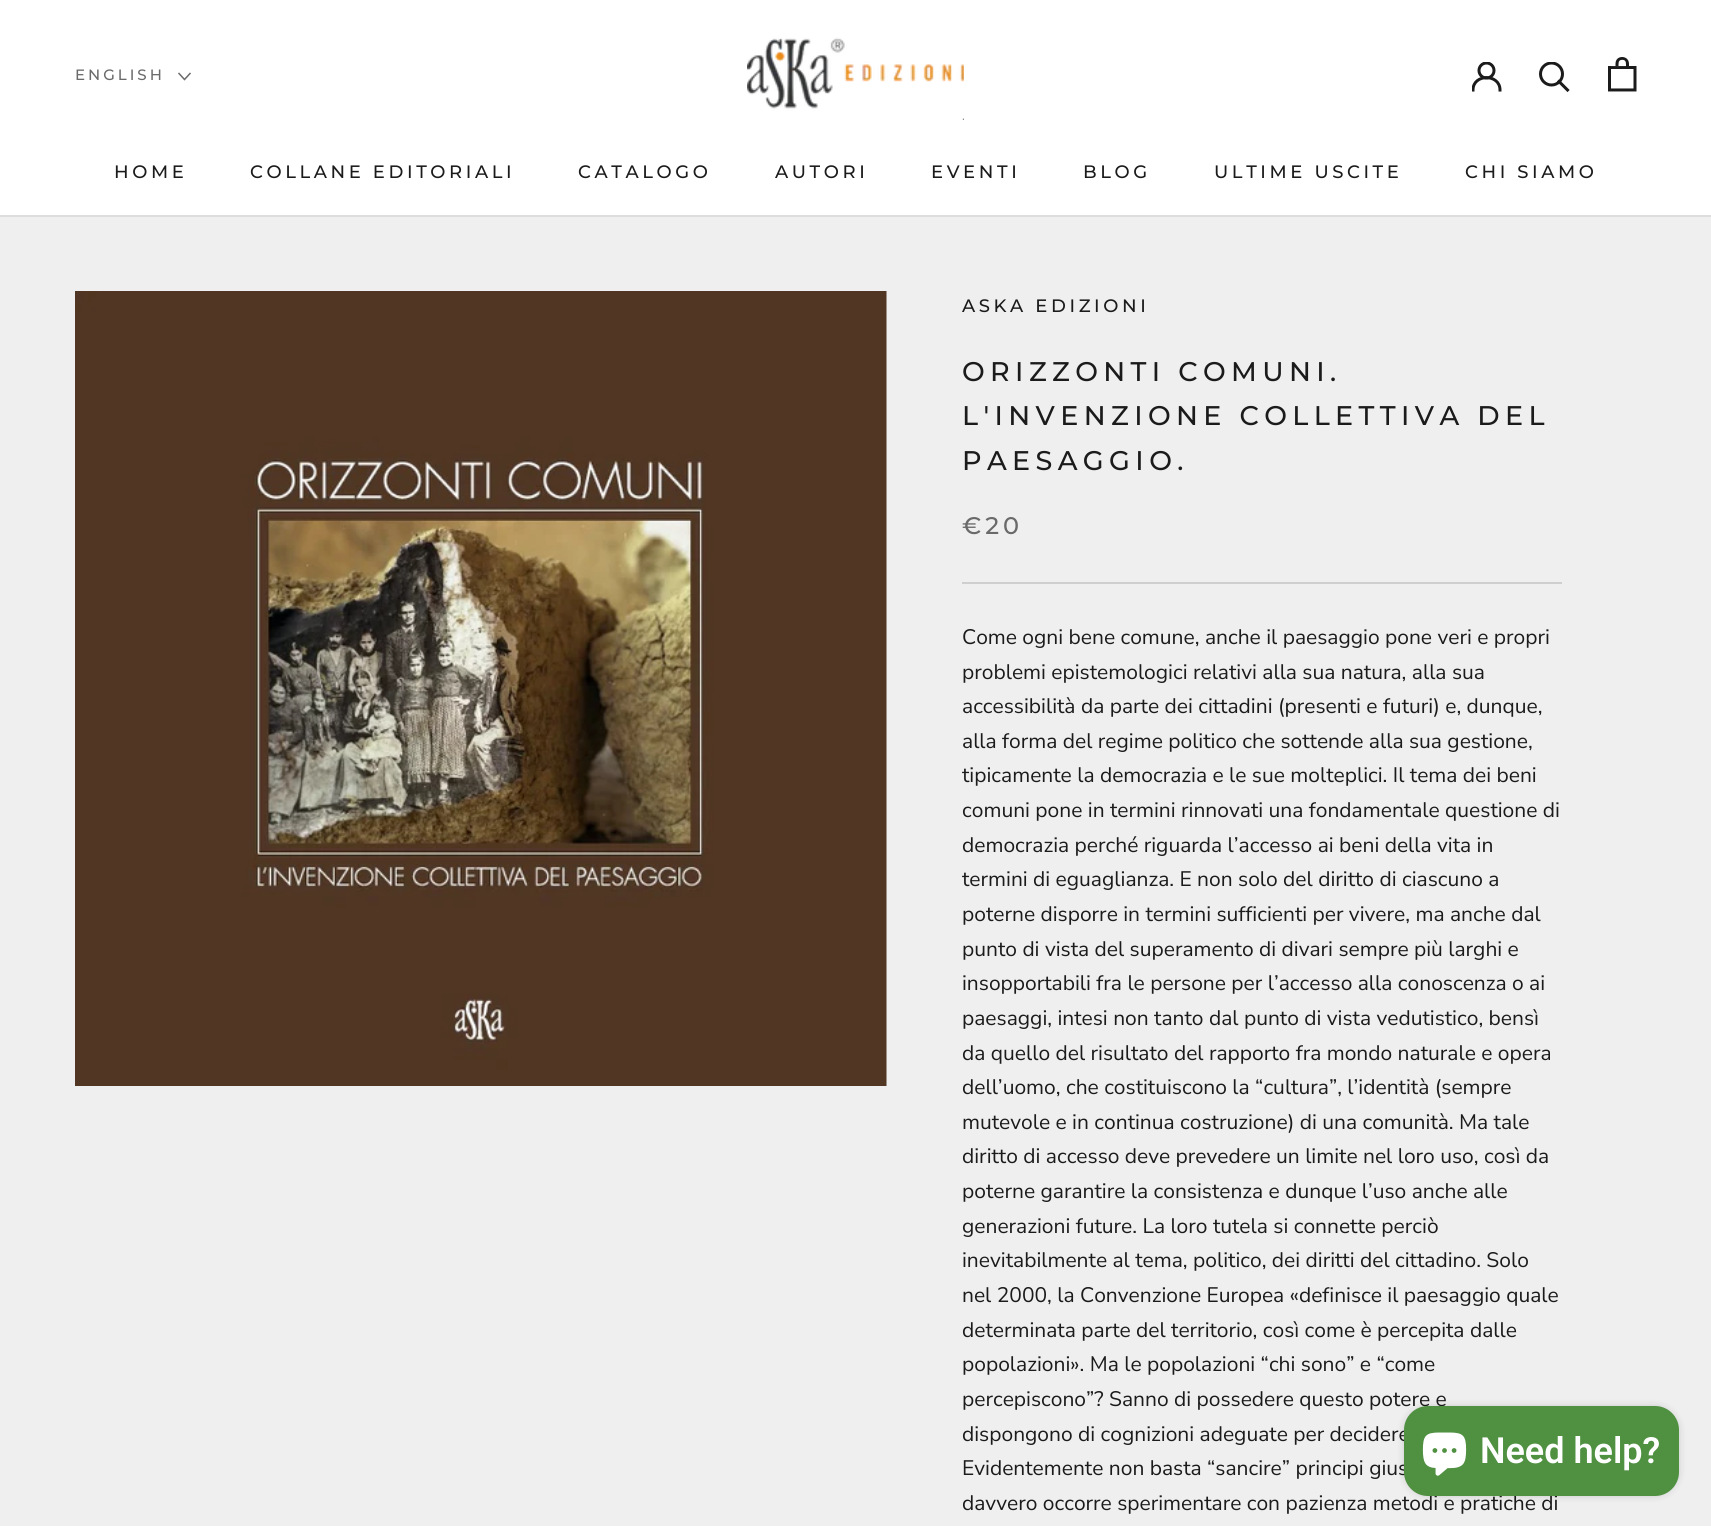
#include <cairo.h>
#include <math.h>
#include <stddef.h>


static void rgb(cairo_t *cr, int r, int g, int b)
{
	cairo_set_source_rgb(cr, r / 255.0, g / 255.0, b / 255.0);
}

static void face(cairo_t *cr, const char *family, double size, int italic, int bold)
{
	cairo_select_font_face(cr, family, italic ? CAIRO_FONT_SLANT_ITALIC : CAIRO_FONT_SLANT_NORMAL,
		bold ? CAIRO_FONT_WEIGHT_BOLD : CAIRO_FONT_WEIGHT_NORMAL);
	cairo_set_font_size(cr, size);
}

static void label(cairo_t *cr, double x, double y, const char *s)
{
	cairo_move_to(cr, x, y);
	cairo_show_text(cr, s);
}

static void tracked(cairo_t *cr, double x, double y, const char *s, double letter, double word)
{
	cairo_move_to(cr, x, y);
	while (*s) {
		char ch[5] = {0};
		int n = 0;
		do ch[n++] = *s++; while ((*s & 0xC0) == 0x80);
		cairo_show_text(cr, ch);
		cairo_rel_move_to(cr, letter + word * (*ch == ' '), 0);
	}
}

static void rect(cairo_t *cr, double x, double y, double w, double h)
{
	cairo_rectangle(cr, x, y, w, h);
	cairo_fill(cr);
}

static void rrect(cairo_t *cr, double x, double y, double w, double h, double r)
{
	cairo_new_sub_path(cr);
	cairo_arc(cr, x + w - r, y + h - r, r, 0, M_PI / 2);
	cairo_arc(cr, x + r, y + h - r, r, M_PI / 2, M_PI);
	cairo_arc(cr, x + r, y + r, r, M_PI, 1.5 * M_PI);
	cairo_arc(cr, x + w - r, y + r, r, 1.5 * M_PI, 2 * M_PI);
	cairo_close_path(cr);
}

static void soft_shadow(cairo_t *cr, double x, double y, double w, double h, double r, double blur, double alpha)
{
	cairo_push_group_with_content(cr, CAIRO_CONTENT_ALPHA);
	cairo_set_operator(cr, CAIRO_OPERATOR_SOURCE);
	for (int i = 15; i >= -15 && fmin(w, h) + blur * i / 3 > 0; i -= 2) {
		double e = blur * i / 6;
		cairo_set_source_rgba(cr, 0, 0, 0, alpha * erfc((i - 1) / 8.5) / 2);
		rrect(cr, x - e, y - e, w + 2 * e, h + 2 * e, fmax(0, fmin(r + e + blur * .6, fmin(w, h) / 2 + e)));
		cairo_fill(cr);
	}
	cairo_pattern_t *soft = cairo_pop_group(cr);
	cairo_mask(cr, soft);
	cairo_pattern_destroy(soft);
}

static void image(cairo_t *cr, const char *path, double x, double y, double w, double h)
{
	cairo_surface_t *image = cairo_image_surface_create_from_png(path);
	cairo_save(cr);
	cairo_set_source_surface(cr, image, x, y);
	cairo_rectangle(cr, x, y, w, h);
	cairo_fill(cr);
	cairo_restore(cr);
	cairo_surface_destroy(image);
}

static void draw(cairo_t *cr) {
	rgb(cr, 239, 239, 239);
	cairo_paint(cr);
	rgb(cr, 255, 255, 255);
	rect(cr, 0, 0, 1711, 215);
	rgb(cr, 221, 221, 221);
	rect(cr, 0, 215, 1711, 2);
	image(cr, "image0.png", 747, 37, 217, 83);
	cairo_save(cr);
	cairo_rectangle(cr, 1472, 62, 30, 30);
	cairo_clip(cr);
	cairo_new_path(cr);
	cairo_move_to(cr, 1473, 90);
	cairo_curve_to(cr, 1473, 73.5, 1500, 73.5, 1500, 90);
	rgb(cr, 28, 27, 27);
	cairo_set_line_width(cr, 3);
	cairo_set_line_cap(cr, CAIRO_LINE_CAP_SQUARE);
	cairo_stroke(cr);
	cairo_arc(cr, 1486.5, 70.5, 7.5, 0, 2 * M_PI);
	cairo_set_line_cap(cr, CAIRO_LINE_CAP_BUTT);
	cairo_stroke(cr);
	cairo_restore(cr);
	cairo_new_path(cr);
	cairo_move_to(cr, 1567.5, 90);
	cairo_line_to(cr, 1559, 81.5);
	rgb(cr, 28, 27, 27);
	cairo_set_line_width(cr, 3);
	cairo_set_line_cap(cr, CAIRO_LINE_CAP_SQUARE);
	cairo_stroke(cr);
	cairo_save(cr);
	cairo_rectangle(cr, 1539, 62, 32, 31);
	cairo_clip(cr);
	cairo_arc(cr, 1551.5, 74, 11, 0, 2 * M_PI);
	cairo_set_line_cap(cr, CAIRO_LINE_CAP_BUTT);
	cairo_stroke(cr);
	cairo_restore(cr);
	image(cr, "image1.png", 1608, 57, 29, 35);
	face(cr, "Montserrat Medium", 15, 0, 0);
	rgb(cr, 106, 106, 106);
	tracked(cr, 75, 80, "ENGLISH", 3, 0);
	cairo_new_path(cr);
	cairo_move_to(cr, 190, 73.5);
	cairo_line_to(cr, 184.5, 79.5);
	cairo_line_to(cr, 179, 73.5);
	cairo_set_line_width(cr, 1.5);
	cairo_stroke(cr);
	face(cr, "Montserrat Medium", 18, 0, 0);
	rgb(cr, 28, 27, 27);
	tracked(cr, 114, 178, "HOME", 3.6, 0);
	tracked(cr, 250, 178, "COLLANE EDITORIALI", 3.6, 0);
	tracked(cr, 578, 178, "CATALOGO", 3.6, 0);
	tracked(cr, 775, 178, "AUTORI", 3.6, 0);
	tracked(cr, 931, 178, "EVENTI", 3.6, 0);
	tracked(cr, 1083, 178, "BLOG", 3.6, 0);
	tracked(cr, 1214, 178, "ULTIME USCITE", 3.6, 0);
	tracked(cr, 1465, 178, "CHI SIAMO", 3.6, 0);
	image(cr, "image2.png", 75, 291, 812, 795);
	tracked(cr, 962, 312, "ASKA EDIZIONI", 3.6, 0);
	face(cr, "Montserrat Medium", 27, 0, 0);
	tracked(cr, 962, 381, "ORIZZONTI COMUNI.", 5.4, 0);
	tracked(cr, 962, 425, "L'INVENZIONE COLLETTIVA DEL", 5.4, 0);
	tracked(cr, 962, 470, "PAESAGGIO.", 5.4, 0);
	face(cr, "Montserrat Medium", 24, 0, 0);
	rgb(cr, 106, 106, 106);
	tracked(cr, 962, 534, "€20", 4, 0);
	rgb(cr, 207, 207, 207);
	rect(cr, 962, 582, 600, 2);
	face(cr, "Nunito Sans", 21, 0, 0);
	rgb(cr, 28, 27, 27);
	label(cr, 962, 644, "Come ogni bene comune, anche il paesaggio pone veri e propri");
	label(cr, 962, 679, "problemi epistemologici relativi alla sua natura, alla sua");
	label(cr, 962, 713, "accessibilità da parte dei cittadini (presenti e futuri) e, dunque,");
	label(cr, 962, 748, "alla forma del regime politico che sottende alla sua gestione,");
	label(cr, 962, 782, "tipicamente la democrazia e le sue molteplici. Il tema dei beni");
	label(cr, 962, 817, "comuni pone in termini rinnovati una fondamentale questione di");
	label(cr, 962, 852, "democrazia perché riguarda l’accesso ai beni della vita in");
	label(cr, 962, 886, "termini di eguaglianza. E non solo del diritto di ciascuno a");
	label(cr, 962, 921, "poterne disporre in termini sufficienti per vivere, ma anche dal");
	label(cr, 962, 956, "punto di vista del superamento di divari sempre più larghi e");
	label(cr, 962, 990, "insopportabili fra le persone per l’accesso alla conoscenza o ai");
	label(cr, 962, 1025, "paesaggi, intesi non tanto dal punto di vista vedutistico, bensì");
	label(cr, 962, 1060, "da quello del risultato del rapporto fra mondo naturale e opera");
	label(cr, 962, 1094, "dell’uomo, che costituiscono la “cultura”, l’identità (sempre");
	label(cr, 962, 1129, "mutevole e in continua costruzione) di una comunità. Ma tale");
	label(cr, 962, 1163, "diritto di accesso deve prevedere un limite nel loro uso, così da");
	label(cr, 962, 1198, "poterne garantire la consistenza e dunque l’uso anche alle");
	label(cr, 962, 1233, "generazioni future. La loro tutela si connette perciò");
	label(cr, 962, 1267, "inevitabilmente al tema, politico, dei diritti del cittadino. Solo");
	label(cr, 962, 1302, "nel 2000, la Convenzione Europea «definisce il paesaggio quale");
	label(cr, 962, 1337, "determinata parte del territorio, così come è percepita dalle");
	label(cr, 962, 1371, "popolazioni». Ma le popolazioni “chi sono” e “come");
	label(cr, 962, 1406, "percepiscono”? Sanno di possedere questo potere e");
	label(cr, 962, 1441, "dispongono di cognizioni adeguate per decidere");
	label(cr, 962, 1475, "Evidentemente non basta “sancire” principi gius");
	label(cr, 962, 1510, "davvero occorre sperimentare con pazienza metodi e pratiche di");
	rgb(cr, 0, 0, 0);
	soft_shadow(cr, 1404, 1406, 275, 90, 24, 4, 0.15);
	rgb(cr, 79, 144, 65);
	rrect(cr, 1404, 1406, 275, 90, 24);
	cairo_fill(cr);
	image(cr, "image3.png", 1422, 1432, 45, 44);
	face(cr, "Roboto SemiBold", 36, 0, 0);
	rgb(cr, 255, 255, 255);
	label(cr, 1480, 1463, "Need help?");
}

int main(void) {
	cairo_surface_t *surface = cairo_image_surface_create(CAIRO_FORMAT_RGB24, 1711, 1526);
	cairo_t *cr = cairo_create(surface);
	cairo_font_options_t *options = cairo_font_options_create();
	cairo_font_options_set_hint_metrics(options, CAIRO_HINT_METRICS_OFF);
	cairo_font_options_set_hint_style(options, CAIRO_HINT_STYLE_NONE);
	cairo_set_font_options(cr, options);
	cairo_set_miter_limit(cr, 4);
	draw(cr);
	cairo_surface_write_to_png(surface, "render.png");
	cairo_font_options_destroy(options);
	cairo_destroy(cr);
	cairo_surface_destroy(surface);
	return 0;
}
